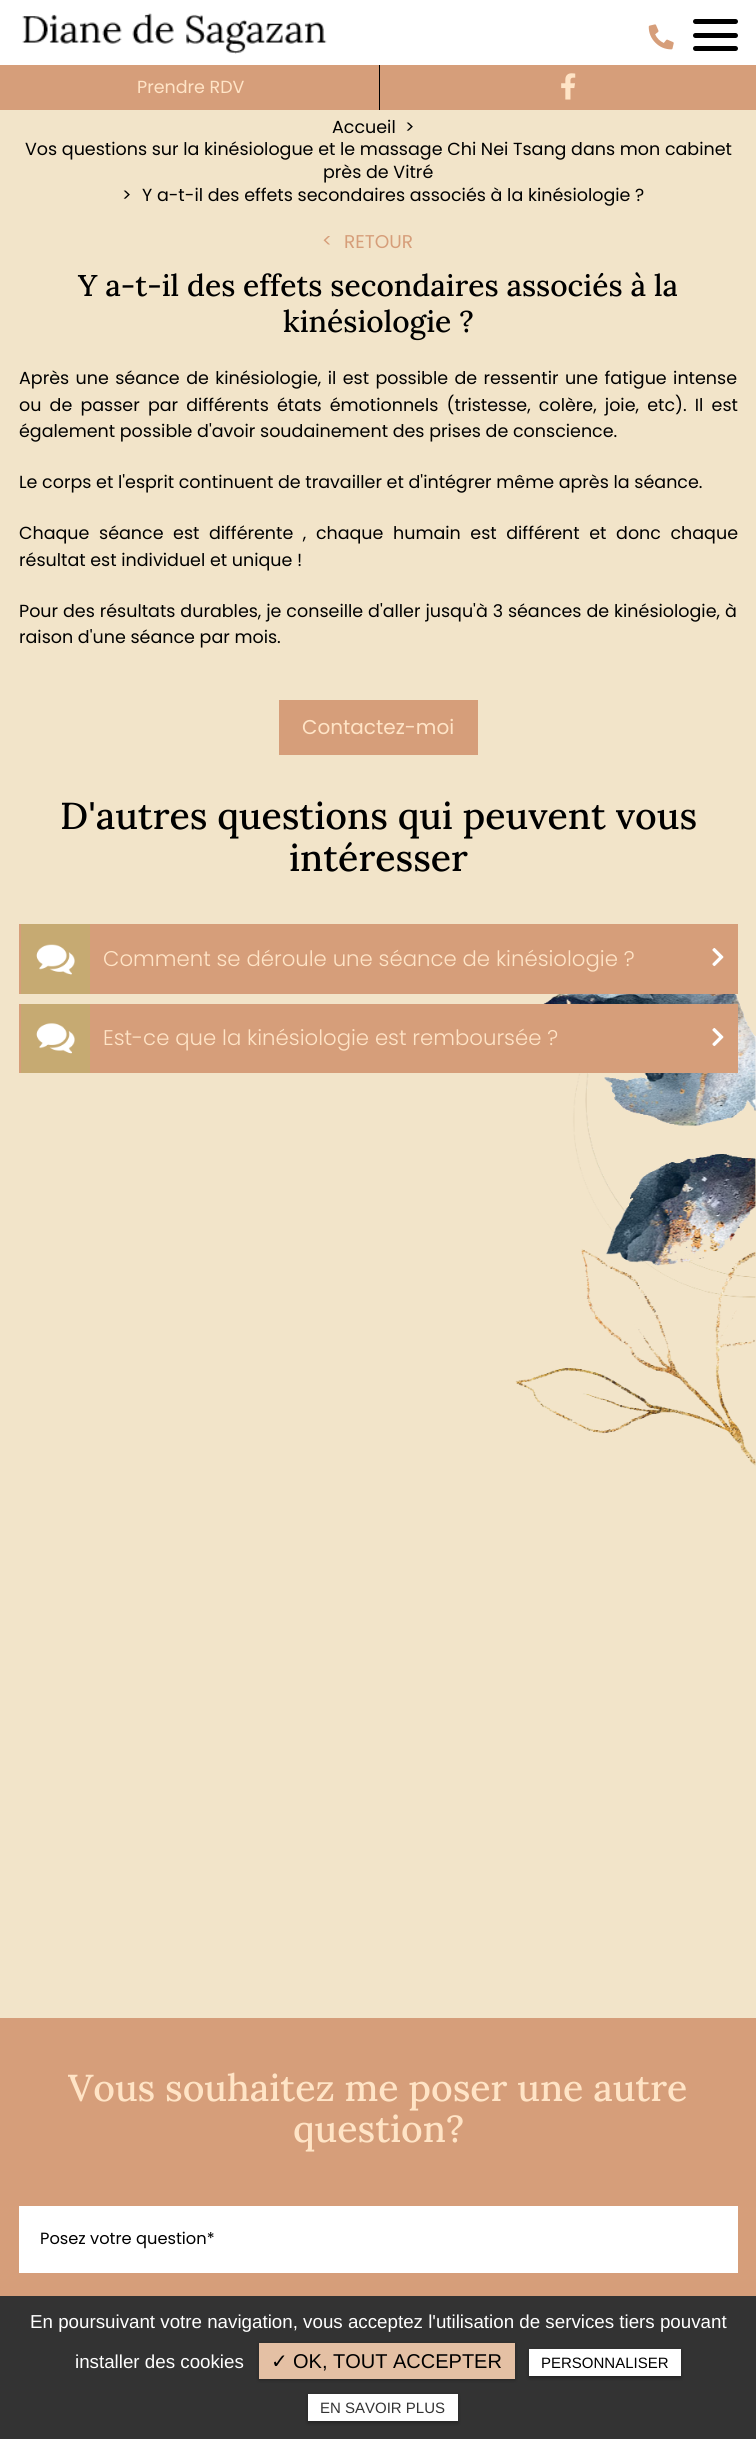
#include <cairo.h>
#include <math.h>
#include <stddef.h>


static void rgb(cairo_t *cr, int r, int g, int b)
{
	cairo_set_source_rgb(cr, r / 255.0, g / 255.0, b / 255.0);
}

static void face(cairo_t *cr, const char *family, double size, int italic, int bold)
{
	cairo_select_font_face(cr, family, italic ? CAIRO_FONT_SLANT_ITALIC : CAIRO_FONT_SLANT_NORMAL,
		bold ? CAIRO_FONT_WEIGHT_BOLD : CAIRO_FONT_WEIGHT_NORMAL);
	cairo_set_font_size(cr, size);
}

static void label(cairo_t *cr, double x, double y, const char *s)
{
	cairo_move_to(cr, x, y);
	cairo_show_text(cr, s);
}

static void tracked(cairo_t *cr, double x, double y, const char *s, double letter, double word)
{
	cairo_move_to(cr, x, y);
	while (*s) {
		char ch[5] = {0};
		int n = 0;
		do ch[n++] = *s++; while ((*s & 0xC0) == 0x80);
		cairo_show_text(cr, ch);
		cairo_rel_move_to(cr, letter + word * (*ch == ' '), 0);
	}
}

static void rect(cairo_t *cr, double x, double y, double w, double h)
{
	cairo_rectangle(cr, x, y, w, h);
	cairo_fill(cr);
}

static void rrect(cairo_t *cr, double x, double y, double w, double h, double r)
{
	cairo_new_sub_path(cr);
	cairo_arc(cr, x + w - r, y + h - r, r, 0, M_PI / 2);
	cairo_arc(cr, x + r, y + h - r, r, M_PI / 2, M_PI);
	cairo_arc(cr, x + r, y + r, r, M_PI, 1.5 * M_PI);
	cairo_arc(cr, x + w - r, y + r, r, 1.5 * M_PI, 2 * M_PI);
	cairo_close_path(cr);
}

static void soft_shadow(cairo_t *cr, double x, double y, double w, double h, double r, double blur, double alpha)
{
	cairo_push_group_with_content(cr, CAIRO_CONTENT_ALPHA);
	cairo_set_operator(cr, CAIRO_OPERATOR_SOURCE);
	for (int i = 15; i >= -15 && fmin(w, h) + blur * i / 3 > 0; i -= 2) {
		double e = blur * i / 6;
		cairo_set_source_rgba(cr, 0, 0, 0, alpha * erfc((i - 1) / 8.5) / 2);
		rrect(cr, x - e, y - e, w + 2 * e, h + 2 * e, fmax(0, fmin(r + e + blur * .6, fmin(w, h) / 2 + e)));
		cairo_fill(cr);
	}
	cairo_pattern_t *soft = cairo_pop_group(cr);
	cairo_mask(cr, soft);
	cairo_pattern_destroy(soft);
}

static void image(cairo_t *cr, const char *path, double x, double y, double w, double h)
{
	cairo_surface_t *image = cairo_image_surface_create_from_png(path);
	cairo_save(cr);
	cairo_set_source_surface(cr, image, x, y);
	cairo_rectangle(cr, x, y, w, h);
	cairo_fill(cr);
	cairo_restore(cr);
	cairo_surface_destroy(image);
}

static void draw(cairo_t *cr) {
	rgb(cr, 242, 228, 201);
	cairo_paint(cr);
	rgb(cr, 255, 255, 255);
	rect(cr, 0, 0, 756, 65);
	image(cr, "image0.png", 22, 13, 305, 41);
	image(cr, "image1.png", 648, 24, 26, 26);
	rgb(cr, 0, 0, 0);
	rrect(cr, 693, 19, 45, 5, 2.5);
	cairo_fill(cr);
	rrect(cr, 693, 33, 45, 5, 2.5);
	cairo_fill(cr);
	rrect(cr, 693, 46, 45, 5, 2.5);
	cairo_fill(cr);
	rgb(cr, 214, 158, 122);
	rect(cr, 0, 65, 379, 45);
	face(cr, "Poppins", 17.5, 0, 0);
	rgb(cr, 255, 228, 198);
	label(cr, 137, 93, "Prendre RDV");
	rgb(cr, 214, 158, 122);
	rect(cr, 380, 65, 376, 45);
	rgb(cr, 0, 0, 0);
	rect(cr, 379, 65, 1, 45);
	image(cr, "image2.png", 561, 73, 15, 27);
	label(cr, 332, 133, "Accueil");
	label(cr, 405, 133, ">");
	label(cr, 25, 155, "Vos questions sur la kinésiologue et le massage Chi Nei Tsang dans mon cabinet");
	label(cr, 323, 178, "près de Vitré");
	label(cr, 122, 201, ">");
	label(cr, 142, 201, "Y a-t-il des effets secondaires associés à la kinésiologie ?");
	face(cr, "Poppins", 18.5, 0, 0);
	rgb(cr, 214, 158, 122);
	label(cr, 322, 247, "<");
	label(cr, 344, 248, "RETOUR");
	face(cr, "Lora Medium", 30, 0, 0);
	rgb(cr, 0, 0, 0);
	label(cr, 78, 296, "Y a-t-il des effets secondaires associés à la");
	label(cr, 283, 332, "kinésiologie ?");
	face(cr, "Poppins", 17.5, 0, 0);
	tracked(cr, 19, 384, "Après une séance de kinésiologie, il est possible de ressentir une fatigue intense", 0, 1.75);
	tracked(cr, 19, 411, "ou de passer par différents états émotionnels (tristesse, colère, joie, etc). Il est", 0, 3.5);
	label(cr, 19, 437, "également possible d'avoir soudainement des prises de conscience.");
	label(cr, 19, 488, "Le corps et l'esprit continuent de travailler et d'intégrer même après la séance.");
	tracked(cr, 19, 539, "Chaque séance est différente , chaque humain est différent et donc chaque", 0, 4.9);
	label(cr, 19, 566, "résultat est individuel et unique !");
	tracked(cr, 19, 617, "Pour des résultats durables, je conseille d'aller jusqu'à 3 séances de kinésiologie, à", 0, 0.25);
	label(cr, 19, 643, "raison d'une séance par mois.");
	rgb(cr, 214, 158, 122);
	rect(cr, 279, 700, 199, 55);
	face(cr, "Poppins", 20, 0, 0);
	rgb(cr, 255, 228, 198);
	label(cr, 302, 734, "Contactez-moi");
	face(cr, "Lora Medium", 37.5, 0, 0);
	rgb(cr, 0, 0, 0);
	label(cr, 60, 829, "D'autres questions qui peuvent vous");
	label(cr, 289, 871, "intéresser");
	rgb(cr, 214, 158, 122);
	rect(cr, 19, 924, 2, 70);
	rect(cr, 90, 924, 648, 70);
	rgb(cr, 198, 170, 114);
	rect(cr, 21, 924, 69, 70);
	image(cr, "image3.png", 36, 944, 39, 31);
	face(cr, "Poppins Light", 21.25, 0, 0);
	rgb(cr, 255, 228, 198);
	label(cr, 103, 966, "Comment se déroule une séance de kinésiologie ?");
	image(cr, "image4.png", 712, 948, 12, 19);
	rgb(cr, 214, 158, 122);
	rect(cr, 19, 1004, 2, 69);
	image(cr, "image6.png", 515, 994, 241, 472);
	rect(cr, 90, 1004, 648, 69);
	rgb(cr, 198, 170, 114);
	rect(cr, 21, 1004, 69, 69);
	image(cr, "image5.png", 36, 1023, 39, 31);
	rgb(cr, 255, 228, 198);
	label(cr, 103, 1045, "Est-ce que la kinésiologie est remboursée ?");
	image(cr, "image4.png", 712, 1028, 12, 19);
	rgb(cr, 214, 158, 122);
	rect(cr, 0, 2018, 756, 278);
	face(cr, "Lora Medium", 37.5, 0, 0);
	rgb(cr, 255, 228, 198);
	label(cr, 68, 2101, "Vous souhaitez me poser une autre");
	label(cr, 293, 2142, "question?");
	rgb(cr, 255, 255, 255);
	rect(cr, 19, 2206, 719, 67);
	face(cr, "Poppins", 16.25, 0, 0);
	rgb(cr, 0, 0, 0);
	label(cr, 40, 2244, "Posez votre question*");
	rgb(cr, 51, 51, 51);
	rect(cr, 0, 2296, 756, 143);
	face(cr, "Liberation Sans", 18.75, 0, 0);
	rgb(cr, 255, 255, 255);
	label(cr, 30, 2328, "En poursuivant votre navigation, vous acceptez l'utilisation de services tiers pouvant");
	label(cr, 75, 2368, "installer des cookies");
	rgb(cr, 0, 0, 0);
	soft_shadow(cr, 259, 2344, 256, 36, 0, 2, 0.3);
	rgb(cr, 228, 192, 164);
	rect(cr, 259, 2343, 256, 36);
	face(cr, "DejaVu Sans", 20, 0, 0);
	rgb(cr, 0, 0, 0);
	label(cr, 271, 2368, "✓");
	face(cr, "Liberation Sans", 20, 0, 0);
	label(cr, 293, 2368, "OK, TOUT ACCEPTER");
	rgb(cr, 0, 0, 0);
	soft_shadow(cr, 529, 2350, 152, 28, 0, 2, 0.3);
	rgb(cr, 255, 255, 255);
	rect(cr, 529, 2349, 152, 27);
	face(cr, "Liberation Sans", 15, 0, 0);
	rgb(cr, 0, 0, 0);
	label(cr, 541, 2368, "PERSONNALISER");
	rgb(cr, 0, 0, 0);
	soft_shadow(cr, 308, 2395, 150, 28, 0, 2, 0.3);
	rgb(cr, 255, 255, 255);
	rect(cr, 308, 2394, 150, 27);
	rgb(cr, 51, 51, 51);
	label(cr, 320, 2413, "EN SAVOIR PLUS");
}

int main(void) {
	cairo_surface_t *surface = cairo_image_surface_create(CAIRO_FORMAT_RGB24, 756, 2439);
	cairo_t *cr = cairo_create(surface);
	cairo_font_options_t *options = cairo_font_options_create();
	cairo_font_options_set_hint_metrics(options, CAIRO_HINT_METRICS_OFF);
	cairo_font_options_set_hint_style(options, CAIRO_HINT_STYLE_NONE);
	cairo_set_font_options(cr, options);
	cairo_set_miter_limit(cr, 4);
	draw(cr);
	cairo_surface_write_to_png(surface, "render.png");
	cairo_font_options_destroy(options);
	cairo_destroy(cr);
	cairo_surface_destroy(surface);
	return 0;
}
